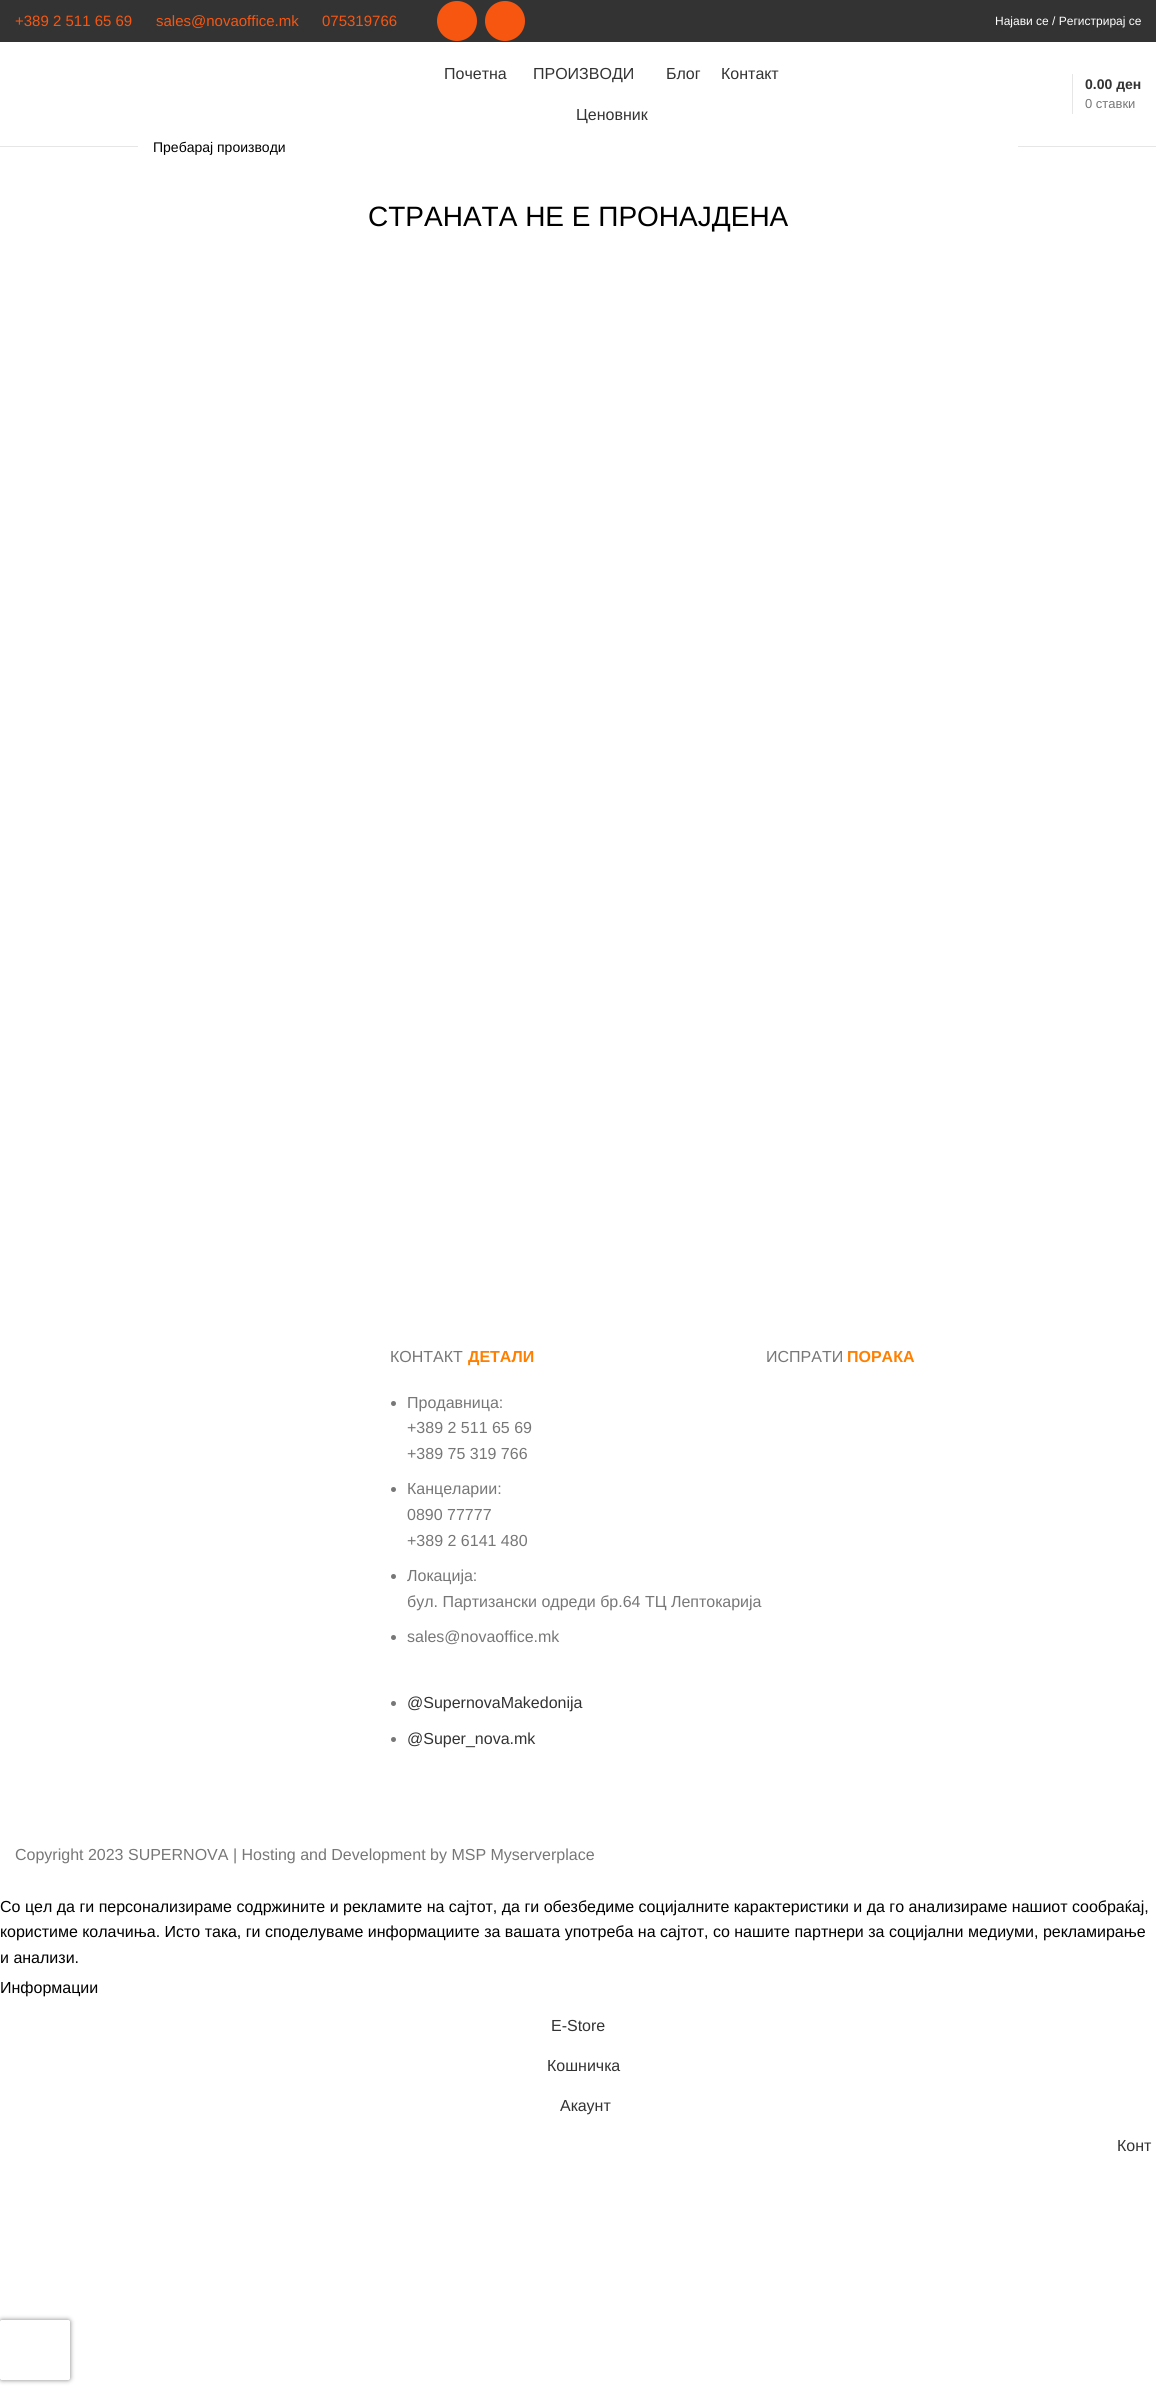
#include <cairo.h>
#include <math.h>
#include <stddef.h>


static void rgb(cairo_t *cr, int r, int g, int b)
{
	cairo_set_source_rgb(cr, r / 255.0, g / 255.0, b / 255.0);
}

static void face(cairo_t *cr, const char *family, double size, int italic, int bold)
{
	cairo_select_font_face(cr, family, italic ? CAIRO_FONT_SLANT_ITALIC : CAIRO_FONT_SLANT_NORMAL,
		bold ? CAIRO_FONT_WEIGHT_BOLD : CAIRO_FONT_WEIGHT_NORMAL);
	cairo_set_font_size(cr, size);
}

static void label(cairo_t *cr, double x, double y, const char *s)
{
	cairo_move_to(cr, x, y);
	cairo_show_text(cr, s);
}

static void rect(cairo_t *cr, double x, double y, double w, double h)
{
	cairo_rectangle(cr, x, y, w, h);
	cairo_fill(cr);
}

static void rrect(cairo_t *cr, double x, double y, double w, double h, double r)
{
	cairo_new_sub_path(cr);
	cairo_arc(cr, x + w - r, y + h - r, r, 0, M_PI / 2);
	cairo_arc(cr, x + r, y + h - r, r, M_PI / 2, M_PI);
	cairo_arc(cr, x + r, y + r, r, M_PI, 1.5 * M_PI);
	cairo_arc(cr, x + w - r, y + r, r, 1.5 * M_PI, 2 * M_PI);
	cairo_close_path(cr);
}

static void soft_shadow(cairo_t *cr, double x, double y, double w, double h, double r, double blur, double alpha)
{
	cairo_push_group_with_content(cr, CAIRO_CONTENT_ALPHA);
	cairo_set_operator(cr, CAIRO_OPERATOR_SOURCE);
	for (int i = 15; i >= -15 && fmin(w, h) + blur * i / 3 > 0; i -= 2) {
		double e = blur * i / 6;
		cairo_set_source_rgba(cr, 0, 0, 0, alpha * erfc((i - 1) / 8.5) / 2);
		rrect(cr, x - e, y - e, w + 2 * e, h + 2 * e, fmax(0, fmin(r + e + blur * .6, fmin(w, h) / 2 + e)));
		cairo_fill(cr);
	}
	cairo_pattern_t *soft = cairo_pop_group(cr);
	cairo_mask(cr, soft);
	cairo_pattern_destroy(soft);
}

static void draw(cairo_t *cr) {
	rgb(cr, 255, 255, 255);
	cairo_paint(cr);
	rgb(cr, 51, 51, 51);
	rect(cr, 0, 0, 1156, 42);
	face(cr, "Liberation Sans", 15, 0, 0);
	rgb(cr, 246, 86, 16);
	label(cr, 15, 26, "+389 2 511 65 69");
	label(cr, 156, 26, "sales@novaoffice.mk");
	label(cr, 322, 26, "075319766");
	cairo_new_path(cr);
	cairo_arc(cr, 457, 21, 20, 0, 2 * M_PI);
	cairo_fill(cr);
	cairo_arc(cr, 505, 21, 20, 0, 2 * M_PI);
	cairo_fill(cr);
	face(cr, "Liberation Sans", 12, 0, 0);
	rgb(cr, 255, 255, 255);
	label(cr, 995, 25, "Најави се / Регистрирај се");
	rgb(cr, 230, 230, 230);
	rect(cr, 0, 146, 1156, 1);
	face(cr, "Liberation Sans", 16, 0, 0);
	rgb(cr, 51, 51, 51);
	label(cr, 444, 79, "Почетна");
	label(cr, 533, 79, "ПРОИЗВОДИ");
	label(cr, 666, 79, "Блог");
	label(cr, 721, 79, "Контакт");
	label(cr, 576, 120, "Ценовник");
	rgb(cr, 230, 230, 230);
	rect(cr, 1072, 74, 1, 40);
	face(cr, "Liberation Sans", 14, 0, 1);
	rgb(cr, 51, 51, 51);
	label(cr, 1085, 89, "0.00 ден");
	face(cr, "Liberation Sans", 13, 0, 0);
	rgb(cr, 119, 119, 119);
	label(cr, 1085, 108, "0 ставки");
	rgb(cr, 255, 255, 255);
	rect(cr, 138, 146, 880, 1);
	face(cr, "Liberation Sans", 14, 0, 0);
	rgb(cr, 0, 0, 0);
	label(cr, 153, 152, "Пребарај производи");
	face(cr, "Liberation Sans", 28, 0, 0);
	label(cr, 368, 226, "СТРАНАТА НЕ Е ПРОНАЈДЕНА");
	face(cr, "Liberation Sans", 16, 0, 0);
	rgb(cr, 119, 119, 119);
	label(cr, 390, 1362, "КОНТАКТ");
	face(cr, "Liberation Sans", 16, 0, 1);
	rgb(cr, 255, 128, 0);
	label(cr, 468, 1362, "ДЕТАЛИ");
	rgb(cr, 119, 119, 119);
	cairo_new_path(cr);
	cairo_arc(cr, 393.5, 1403.5, 2.5, 0, 2 * M_PI);
	cairo_fill(cr);
	face(cr, "Liberation Sans", 16, 0, 0);
	label(cr, 407, 1408, "Продавница:");
	label(cr, 407, 1433, "+389 2 511 65 69");
	label(cr, 407, 1459, "+389 75 319 766");
	cairo_new_path(cr);
	cairo_arc(cr, 393.5, 1489.5, 2.5, 0, 2 * M_PI);
	cairo_fill(cr);
	label(cr, 407, 1494, "Канцеларии:");
	label(cr, 407, 1520, "0890 77777");
	label(cr, 407, 1546, "+389 2 6141 480");
	cairo_new_path(cr);
	cairo_arc(cr, 393.5, 1576.5, 2.5, 0, 2 * M_PI);
	cairo_fill(cr);
	label(cr, 407, 1581, "Локација:");
	label(cr, 407, 1607, "бул. Партизански одреди бр.64 ТЦ Лептокарија");
	cairo_new_path(cr);
	cairo_arc(cr, 393.5, 1637.5, 2.5, 0, 2 * M_PI);
	cairo_fill(cr);
	label(cr, 407, 1642, "sales@novaoffice.mk");
	cairo_new_path(cr);
	cairo_arc(cr, 393.5, 1703.5, 2.5, 0, 2 * M_PI);
	cairo_fill(cr);
	rgb(cr, 51, 51, 51);
	label(cr, 407, 1708, "@SupernovaMakedonija");
	rgb(cr, 119, 119, 119);
	cairo_new_path(cr);
	cairo_arc(cr, 393.5, 1739.5, 2.5, 0, 2 * M_PI);
	cairo_fill(cr);
	rgb(cr, 51, 51, 51);
	label(cr, 407, 1744, "@Super_nova.mk");
	rgb(cr, 119, 119, 119);
	label(cr, 766, 1362, "ИСПРАТИ");
	face(cr, "Liberation Sans", 16, 0, 1);
	rgb(cr, 255, 128, 0);
	label(cr, 847, 1362, "ПОРАКА");
	face(cr, "Liberation Sans", 16, 0, 0);
	rgb(cr, 119, 119, 119);
	label(cr, 15, 1860, "Copyright 2023 SUPERNOVA | Hosting and Development by MSP Myserverplace");
	rgb(cr, 0, 0, 0);
	label(cr, 0, 1912, "Со цел да ги персонализираме содржините и рекламите на сајтот, да ги обезбедиме социјалните карактеристики и да го анализираме нашиот сообраќај,");
	label(cr, 0, 1937, "користиме колачиња. Исто така, ги споделуваме информациите за вашата употреба на сајтот, со нашите партнери за социјални медиуми, рекламирање");
	label(cr, 0, 1963, "и анализи.");
	label(cr, 0, 1993, "Информации");
	rgb(cr, 51, 51, 51);
	label(cr, 551, 2031, "Е-Store");
	label(cr, 547, 2071, "Кошничка");
	label(cr, 560, 2111, "Акаунт");
	label(cr, 1117, 2151, "Конт");
	cairo_save(cr);
	cairo_set_fill_rule(cr, CAIRO_FILL_RULE_EVEN_ODD);
	cairo_new_path(cr);
	cairo_move_to(cr, 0, 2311);
	cairo_line_to(cr, 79, 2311);
	cairo_line_to(cr, 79, 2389);
	cairo_line_to(cr, 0, 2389);
	cairo_close_path(cr);
	cairo_move_to(cr, 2, 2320);
	cairo_line_to(cr, 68, 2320);
	cairo_curve_to(cr, 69, 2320, 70, 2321, 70, 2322);
	cairo_line_to(cr, 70, 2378);
	cairo_curve_to(cr, 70, 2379, 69, 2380, 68, 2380);
	cairo_line_to(cr, 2, 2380);
	cairo_curve_to(cr, 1, 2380, 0, 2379, 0, 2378);
	cairo_line_to(cr, 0, 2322);
	cairo_curve_to(cr, 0, 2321, 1, 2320, 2, 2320);
	cairo_close_path(cr);
	cairo_clip(cr);
	rgb(cr, 128, 128, 128);
	soft_shadow(cr, 0, 2320, 70, 60, 2, 2.5, 1);
	cairo_restore(cr);
}

int main(void) {
	cairo_surface_t *surface = cairo_image_surface_create(CAIRO_FORMAT_RGB24, 1156, 2394);
	cairo_t *cr = cairo_create(surface);
	cairo_font_options_t *options = cairo_font_options_create();
	cairo_font_options_set_hint_metrics(options, CAIRO_HINT_METRICS_OFF);
	cairo_font_options_set_hint_style(options, CAIRO_HINT_STYLE_NONE);
	cairo_set_font_options(cr, options);
	cairo_set_miter_limit(cr, 4);
	draw(cr);
	cairo_surface_write_to_png(surface, "render.png");
	cairo_font_options_destroy(options);
	cairo_destroy(cr);
	cairo_surface_destroy(surface);
	return 0;
}
